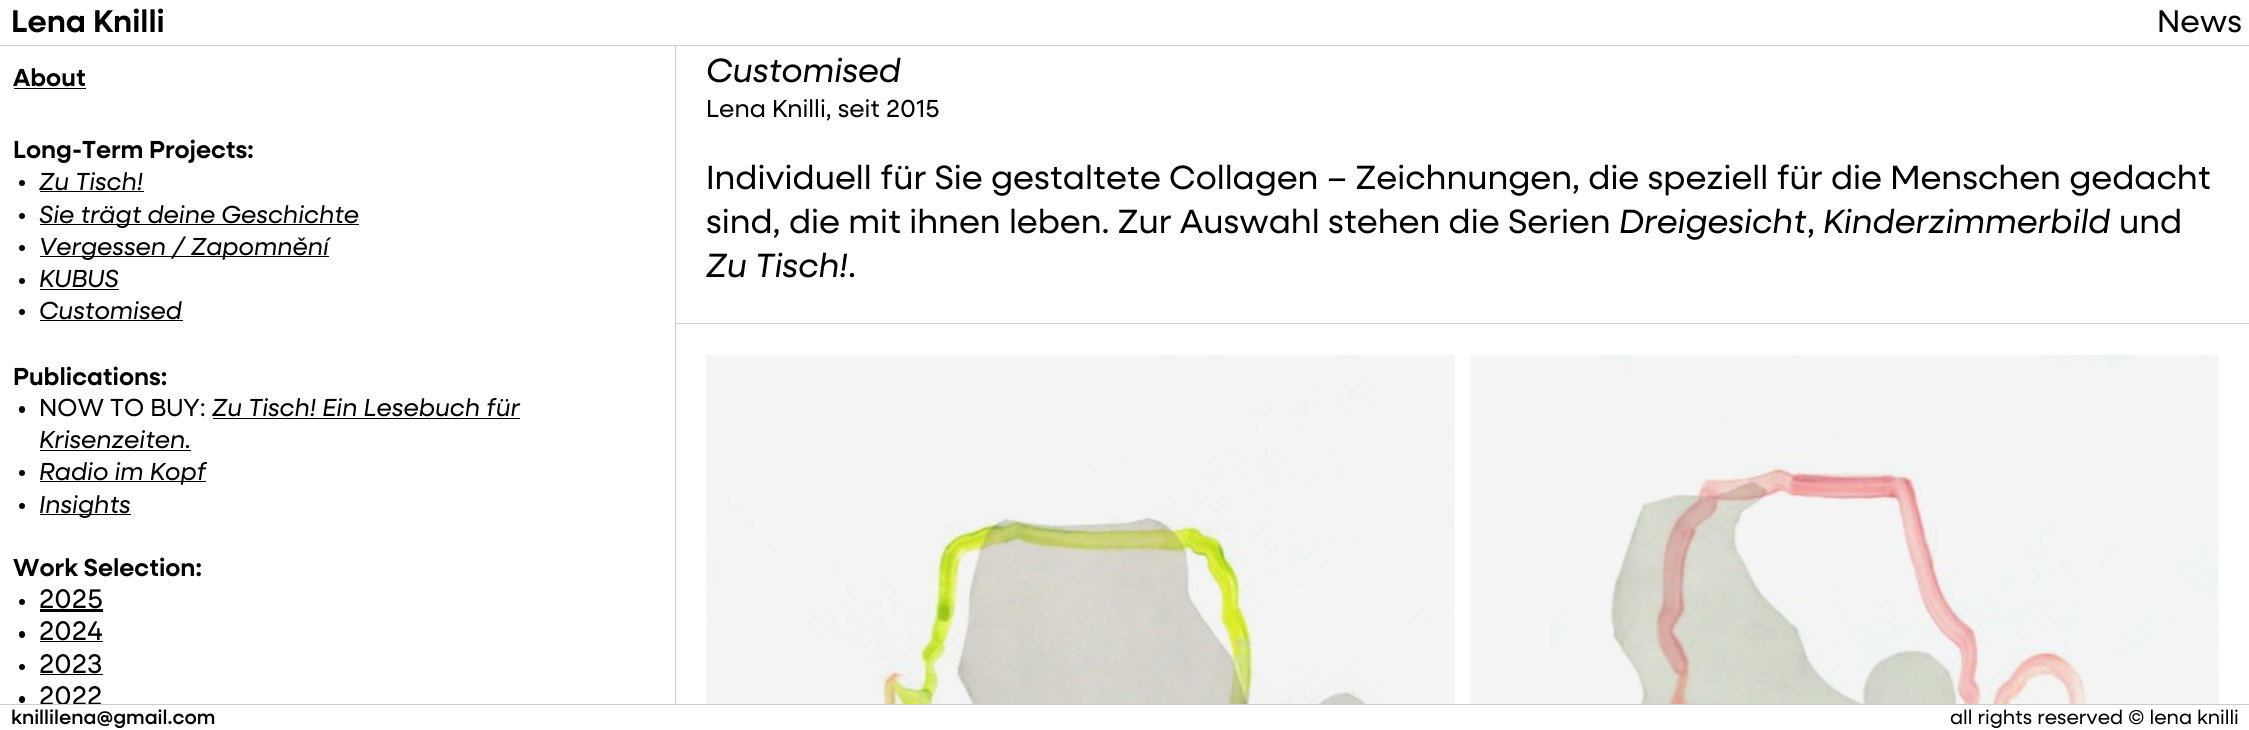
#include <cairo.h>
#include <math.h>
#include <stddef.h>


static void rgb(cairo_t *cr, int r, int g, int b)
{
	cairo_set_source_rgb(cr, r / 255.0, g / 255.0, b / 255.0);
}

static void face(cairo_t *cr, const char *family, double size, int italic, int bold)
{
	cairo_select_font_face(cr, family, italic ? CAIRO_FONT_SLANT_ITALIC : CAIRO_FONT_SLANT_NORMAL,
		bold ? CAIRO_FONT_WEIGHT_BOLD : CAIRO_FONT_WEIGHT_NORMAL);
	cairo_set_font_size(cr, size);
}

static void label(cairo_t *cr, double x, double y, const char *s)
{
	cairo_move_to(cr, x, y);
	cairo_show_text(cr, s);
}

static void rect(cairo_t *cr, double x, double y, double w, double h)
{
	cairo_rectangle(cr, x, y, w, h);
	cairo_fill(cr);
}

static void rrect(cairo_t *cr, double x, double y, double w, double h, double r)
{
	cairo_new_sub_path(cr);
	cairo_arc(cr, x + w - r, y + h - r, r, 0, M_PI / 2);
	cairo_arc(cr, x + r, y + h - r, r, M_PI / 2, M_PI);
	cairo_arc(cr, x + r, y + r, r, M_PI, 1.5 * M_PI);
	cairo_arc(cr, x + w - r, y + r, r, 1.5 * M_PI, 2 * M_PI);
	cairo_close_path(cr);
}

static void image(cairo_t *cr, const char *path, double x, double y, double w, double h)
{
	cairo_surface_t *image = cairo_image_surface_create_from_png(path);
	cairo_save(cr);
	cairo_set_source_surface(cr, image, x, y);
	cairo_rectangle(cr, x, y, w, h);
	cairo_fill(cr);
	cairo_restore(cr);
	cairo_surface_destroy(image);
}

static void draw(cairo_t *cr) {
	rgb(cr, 255, 255, 255);
	cairo_paint(cr);
	face(cr, "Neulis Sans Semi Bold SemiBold", 31.5, 0, 0);
	rgb(cr, 0, 0, 0);
	label(cr, 11, 32, "Lena Knilli");
	face(cr, "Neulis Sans", 31.5, 0, 0);
	label(cr, 2157, 32, "News");
	rgb(cr, 204, 204, 204);
	rect(cr, 0, 45, 2249, 1);
	rect(cr, 675, 323, 1574, 1);
	rect(cr, 675, 46, 1, 658);
	face(cr, "Neulis Sans Semi Bold SemiBold", 24.75, 0, 0);
	rgb(cr, 0, 0, 0);
	label(cr, 13, 86, "About");
	rect(cr, 14, 88, 72, 1);
	label(cr, 13, 158, "Long-Term Projects:");
	cairo_new_path(cr);
	cairo_arc(cr, 22, 183, 3, 0, 2 * M_PI);
	cairo_fill(cr);
	face(cr, "Neulis Sans", 24.75, 1, 0);
	label(cr, 39, 190, "Zu Tisch!");
	rect(cr, 40, 191, 104, 1);
	cairo_new_path(cr);
	cairo_arc(cr, 22, 216, 3, 0, 2 * M_PI);
	cairo_fill(cr);
	rect(cr, 40, 224, 319, 1);
	label(cr, 39, 223, "Sie trägt deine Geschichte");
	cairo_new_path(cr);
	cairo_arc(cr, 22, 248, 3, 0, 2 * M_PI);
	cairo_fill(cr);
	rect(cr, 40, 256, 289, 1);
	label(cr, 39, 255, "Vergessen / Zapomnění");
	cairo_new_path(cr);
	cairo_arc(cr, 22, 281, 3, 0, 2 * M_PI);
	cairo_fill(cr);
	label(cr, 39, 287, "KUBUS");
	rect(cr, 40, 289, 79, 1);
	cairo_new_path(cr);
	cairo_arc(cr, 22, 312, 3, 0, 2 * M_PI);
	cairo_fill(cr);
	label(cr, 39, 319, "Customised");
	rect(cr, 40, 320, 143, 1);
	face(cr, "Neulis Sans Semi Bold SemiBold", 24.75, 0, 0);
	label(cr, 13, 385, "Publications:");
	rrect(cr, 19, 406, 6, 7, 3);
	cairo_fill(cr);
	face(cr, "Neulis Sans", 24.75, 0, 0);
	label(cr, 39, 416, "NOW TO BUY:");
	face(cr, "Neulis Sans", 24.75, 1, 0);
	label(cr, 212, 416, "Zu Tisch! Ein Lesebuch für");
	rect(cr, 213, 418, 307, 1);
	label(cr, 39, 448, "Krisenzeiten.");
	rect(cr, 40, 450, 151, 1);
	cairo_new_path(cr);
	cairo_arc(cr, 22, 473, 3, 0, 2 * M_PI);
	cairo_fill(cr);
	rect(cr, 40, 481, 166, 1);
	label(cr, 39, 480, "Radio im Kopf");
	cairo_new_path(cr);
	cairo_arc(cr, 22, 506, 3, 0, 2 * M_PI);
	cairo_fill(cr);
	rect(cr, 40, 514, 91, 1);
	label(cr, 39, 513, "Insights");
	face(cr, "Neulis Sans Semi Bold SemiBold", 24.75, 0, 0);
	label(cr, 13, 576, "Work Selection:");
	cairo_new_path(cr);
	cairo_arc(cr, 22, 602, 3, 0, 2 * M_PI);
	cairo_fill(cr);
	face(cr, "Neulis Sans", 27, 0, 0);
	label(cr, 39, 608, "2025");
	rect(cr, 40, 609, 63, 3);
	rrect(cr, 19, 631, 6, 7, 3);
	cairo_fill(cr);
	label(cr, 39, 640, "2024");
	rect(cr, 40, 641, 63, 1);
	cairo_new_path(cr);
	cairo_arc(cr, 22, 667, 3, 0, 2 * M_PI);
	cairo_fill(cr);
	label(cr, 39, 673, "2023");
	rect(cr, 40, 674, 63, 1);
	rrect(cr, 19, 696, 6, 7, 3);
	cairo_fill(cr);
	label(cr, 39, 705, "2022");
	face(cr, "Neulis Sans", 33.75, 1, 0);
	label(cr, 706, 82, "Customised");
	face(cr, "Neulis Sans", 24.75, 0, 0);
	label(cr, 706, 117, "Lena Knilli, seit 2015");
	face(cr, "Neulis Sans", 33.75, 0, 0);
	label(cr, 706, 189, "Individuell für Sie gestaltete Collagen – Zeichnungen, die speziell für die Menschen gedacht");
	label(cr, 706, 233, "sind, die mit ihnen leben. Zur Auswahl stehen die Serien");
	face(cr, "Neulis Sans", 33.75, 1, 0);
	label(cr, 1619, 233, "Dreigesicht");
	face(cr, "Neulis Sans", 33.75, 0, 0);
	label(cr, 1807, 233, ",");
	face(cr, "Neulis Sans", 33.75, 1, 0);
	label(cr, 1823, 233, "Kinderzimmerbild");
	face(cr, "Neulis Sans", 33.75, 0, 0);
	label(cr, 2119, 233, "und");
	face(cr, "Neulis Sans", 33.75, 1, 0);
	label(cr, 706, 277, "Zu Tisch!");
	face(cr, "Neulis Sans", 33.75, 0, 0);
	label(cr, 848, 277, ".");
	image(cr, "image0.png", 706, 355, 749, 349);
	image(cr, "image1.png", 1470, 355, 749, 349);
	rgb(cr, 255, 255, 255);
	rect(cr, 61, 705, 5, 1);
	rgb(cr, 204, 204, 204);
	rect(cr, 0, 704, 2249, 1);
	face(cr, "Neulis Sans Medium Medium", 20, 0, 0);
	rgb(cr, 0, 0, 0);
	label(cr, 11, 724, "knillilena@gmail.com");
	face(cr, "Neulis Sans", 20, 0, 0);
	label(cr, 1950, 724, "all rights reserved © lena knilli");
}

int main(void) {
	cairo_surface_t *surface = cairo_image_surface_create(CAIRO_FORMAT_RGB24, 2249, 730);
	cairo_t *cr = cairo_create(surface);
	cairo_font_options_t *options = cairo_font_options_create();
	cairo_font_options_set_hint_metrics(options, CAIRO_HINT_METRICS_OFF);
	cairo_font_options_set_hint_style(options, CAIRO_HINT_STYLE_NONE);
	cairo_set_font_options(cr, options);
	cairo_set_miter_limit(cr, 4);
	draw(cr);
	cairo_surface_write_to_png(surface, "render.png");
	cairo_font_options_destroy(options);
	cairo_destroy(cr);
	cairo_surface_destroy(surface);
	return 0;
}
